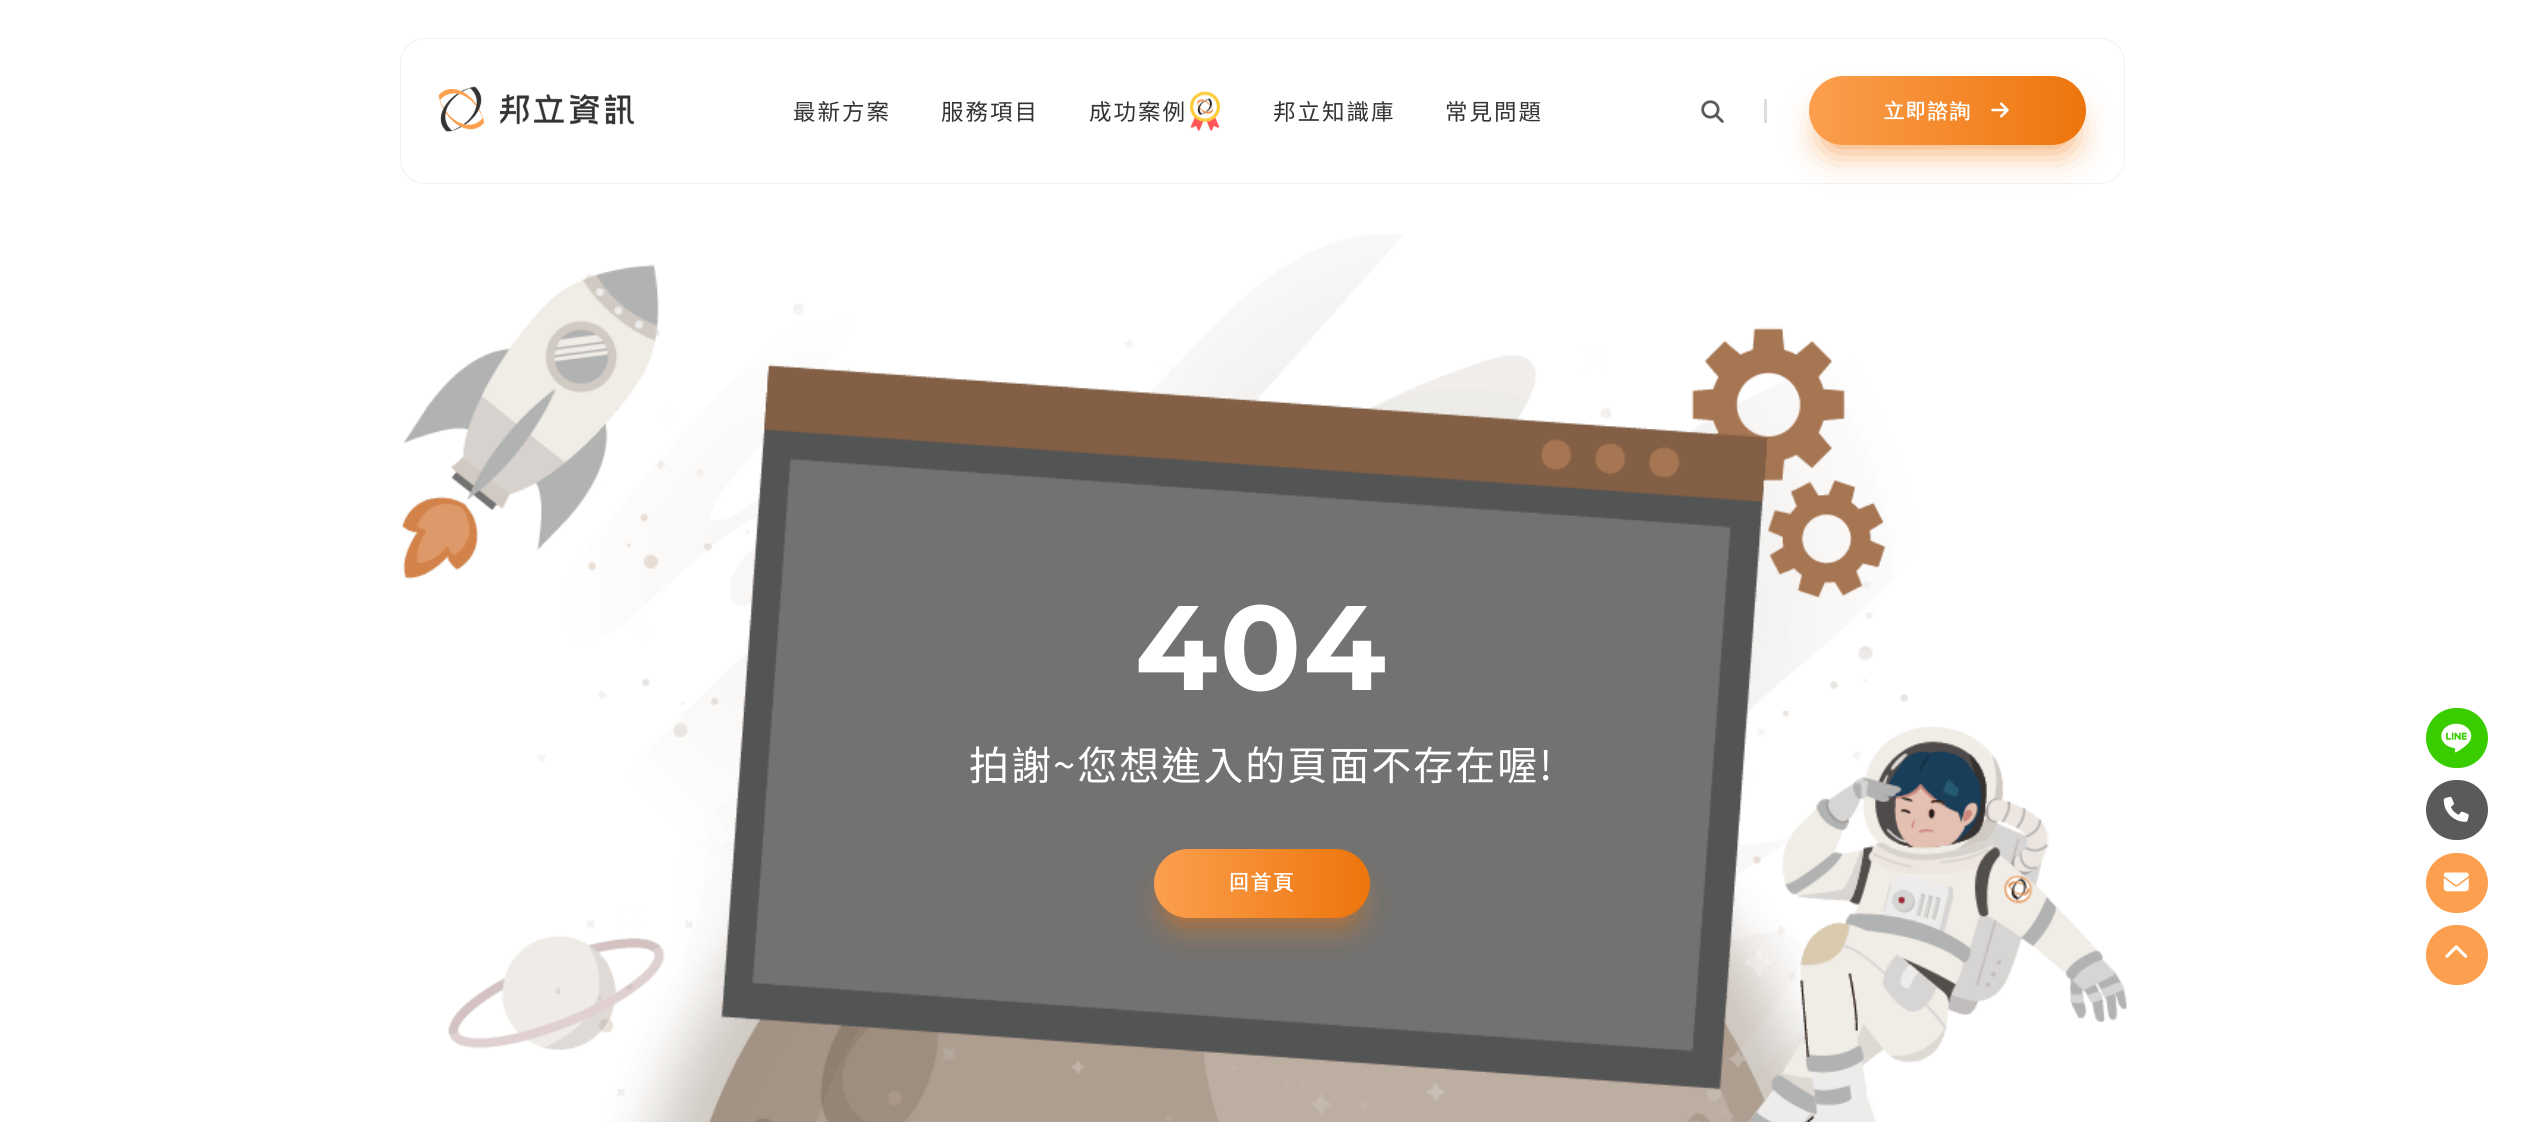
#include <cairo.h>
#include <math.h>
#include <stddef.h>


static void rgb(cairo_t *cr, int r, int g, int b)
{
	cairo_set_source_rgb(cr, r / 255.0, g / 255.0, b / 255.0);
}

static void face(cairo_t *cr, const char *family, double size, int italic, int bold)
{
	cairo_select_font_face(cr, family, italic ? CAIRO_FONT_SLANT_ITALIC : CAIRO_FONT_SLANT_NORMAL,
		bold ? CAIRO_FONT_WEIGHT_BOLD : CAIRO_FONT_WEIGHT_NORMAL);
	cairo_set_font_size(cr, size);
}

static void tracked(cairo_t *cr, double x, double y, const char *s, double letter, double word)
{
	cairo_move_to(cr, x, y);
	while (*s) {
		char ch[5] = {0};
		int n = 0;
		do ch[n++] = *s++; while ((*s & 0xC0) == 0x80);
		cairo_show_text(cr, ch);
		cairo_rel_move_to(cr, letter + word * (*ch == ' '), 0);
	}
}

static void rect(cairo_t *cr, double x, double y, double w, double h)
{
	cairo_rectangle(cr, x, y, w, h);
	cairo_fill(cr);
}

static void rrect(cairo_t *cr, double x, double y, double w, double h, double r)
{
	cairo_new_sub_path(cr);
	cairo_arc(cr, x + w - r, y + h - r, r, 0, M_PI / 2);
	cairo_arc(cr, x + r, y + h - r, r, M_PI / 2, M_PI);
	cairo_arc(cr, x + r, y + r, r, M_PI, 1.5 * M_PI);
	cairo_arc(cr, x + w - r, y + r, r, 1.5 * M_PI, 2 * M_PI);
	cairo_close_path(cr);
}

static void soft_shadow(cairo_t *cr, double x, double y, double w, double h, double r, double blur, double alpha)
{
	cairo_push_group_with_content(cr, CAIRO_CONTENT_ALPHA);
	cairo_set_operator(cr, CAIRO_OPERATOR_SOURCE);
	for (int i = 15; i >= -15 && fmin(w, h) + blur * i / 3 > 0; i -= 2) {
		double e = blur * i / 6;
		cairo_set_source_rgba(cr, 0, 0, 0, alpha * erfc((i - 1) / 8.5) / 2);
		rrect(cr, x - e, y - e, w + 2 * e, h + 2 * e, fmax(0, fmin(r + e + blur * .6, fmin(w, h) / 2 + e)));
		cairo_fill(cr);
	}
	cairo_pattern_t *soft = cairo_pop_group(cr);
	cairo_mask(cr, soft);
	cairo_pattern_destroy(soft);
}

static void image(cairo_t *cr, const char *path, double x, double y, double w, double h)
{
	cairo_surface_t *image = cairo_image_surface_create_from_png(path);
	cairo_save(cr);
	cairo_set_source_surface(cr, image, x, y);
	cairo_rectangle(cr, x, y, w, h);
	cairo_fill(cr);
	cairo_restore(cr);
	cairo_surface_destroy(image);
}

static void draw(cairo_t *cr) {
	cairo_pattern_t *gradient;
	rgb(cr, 255, 255, 255);
	cairo_paint(cr);
	rrect(cr, 400.5, 38.5, 1724, 145, 24.5);
	rgb(cr, 241, 241, 241);
	cairo_set_line_width(cr, 1);
	cairo_stroke(cr);
	image(cr, "image0.png", 438, 86, 196, 46);
	face(cr, "Noto Sans TC", 22.5, 0, 0);
	rgb(cr, 51, 51, 51);
	tracked(cr, 793, 120, "最新方案", 2, 0);
	tracked(cr, 941, 120, "服務項目", 2, 0);
	tracked(cr, 1089, 120, "成功案例", 2, 0);
	image(cr, "image1.png", 1190, 91, 30, 41);
	tracked(cr, 1273, 120, "邦立知識庫", 2, 0);
	tracked(cr, 1445, 120, "常見問題", 2, 0);
	rgb(cr, 220, 221, 224);
	rect(cr, 1764, 99, 3, 24);
	image(cr, "image2.png", 1701, 100, 23, 23);
	rgb(cr, 240, 118, 11);
	soft_shadow(cr, 1828, 115, 240, 31, 15.5, 19, 0.8);
	gradient = cairo_pattern_create_linear(1809, 111, 2086, 111);
	cairo_pattern_add_color_stop_rgba(gradient, 0, 0.988, 0.624, 0.306, 1);
	cairo_pattern_add_color_stop_rgba(gradient, 1, 0.929, 0.459, 0.047, 1);
	cairo_set_source(cr, gradient);
	cairo_pattern_destroy(gradient);
	rrect(cr, 1809, 76, 277, 69, 34.5);
	cairo_fill(cr);
	face(cr, "WenQuanYi Zen Hei", 20, 0, 1);
	rgb(cr, 255, 255, 255);
	tracked(cr, 1884, 118, "立即諮詢", 2, 0);
	image(cr, "image3.png", 1991, 102, 18, 16);
	image(cr, "image4.png", 401, 234, 1727, 888);
	face(cr, "Montserrat Alternates", 120, 0, 1);
	tracked(cr, 1135, 690, "404", 2, 0);
	face(cr, "Noto Sans TC", 40, 0, 0);
	tracked(cr, 969, 780, "拍謝~您想進入的頁面不存在喔!", 2, 0);
	rgb(cr, 240, 118, 11);
	soft_shadow(cr, 1173, 888, 178, 31, 15.5, 19, 0.8);
	gradient = cairo_pattern_create_linear(1154, 883, 1370, 883);
	cairo_pattern_add_color_stop_rgba(gradient, 0, 0.988, 0.624, 0.306, 1);
	cairo_pattern_add_color_stop_rgba(gradient, 1, 0.929, 0.459, 0.047, 1);
	cairo_set_source(cr, gradient);
	cairo_pattern_destroy(gradient);
	rrect(cr, 1154, 849, 216, 69, 34.5);
	cairo_fill(cr);
	face(cr, "WenQuanYi Zen Hei", 20, 0, 1);
	rgb(cr, 255, 255, 255);
	tracked(cr, 1229, 889, "回首頁", 2, 0);
	rgb(cr, 57, 205, 0);
	rrect(cr, 2426, 708, 62, 60, 30);
	cairo_fill(cr);
	image(cr, "image5.png", 2441, 723, 31, 30);
	rgb(cr, 90, 90, 90);
	rrect(cr, 2426, 780, 62, 60, 30);
	cairo_fill(cr);
	image(cr, "image6.png", 2443, 796, 26, 26);
	rgb(cr, 252, 159, 78);
	rrect(cr, 2426, 853, 62, 60, 30);
	cairo_fill(cr);
	image(cr, "image7.png", 2443, 872, 26, 20);
	rrect(cr, 2426, 925, 62, 60, 30);
	cairo_fill(cr);
	image(cr, "image8.png", 2445, 945, 23, 13);
}

int main(void) {
	cairo_surface_t *surface = cairo_image_surface_create(CAIRO_FORMAT_RGB24, 2523, 1122);
	cairo_t *cr = cairo_create(surface);
	cairo_font_options_t *options = cairo_font_options_create();
	cairo_font_options_set_hint_metrics(options, CAIRO_HINT_METRICS_OFF);
	cairo_font_options_set_hint_style(options, CAIRO_HINT_STYLE_NONE);
	cairo_set_font_options(cr, options);
	cairo_set_miter_limit(cr, 4);
	draw(cr);
	cairo_surface_write_to_png(surface, "render.png");
	cairo_font_options_destroy(options);
	cairo_destroy(cr);
	cairo_surface_destroy(surface);
	return 0;
}
